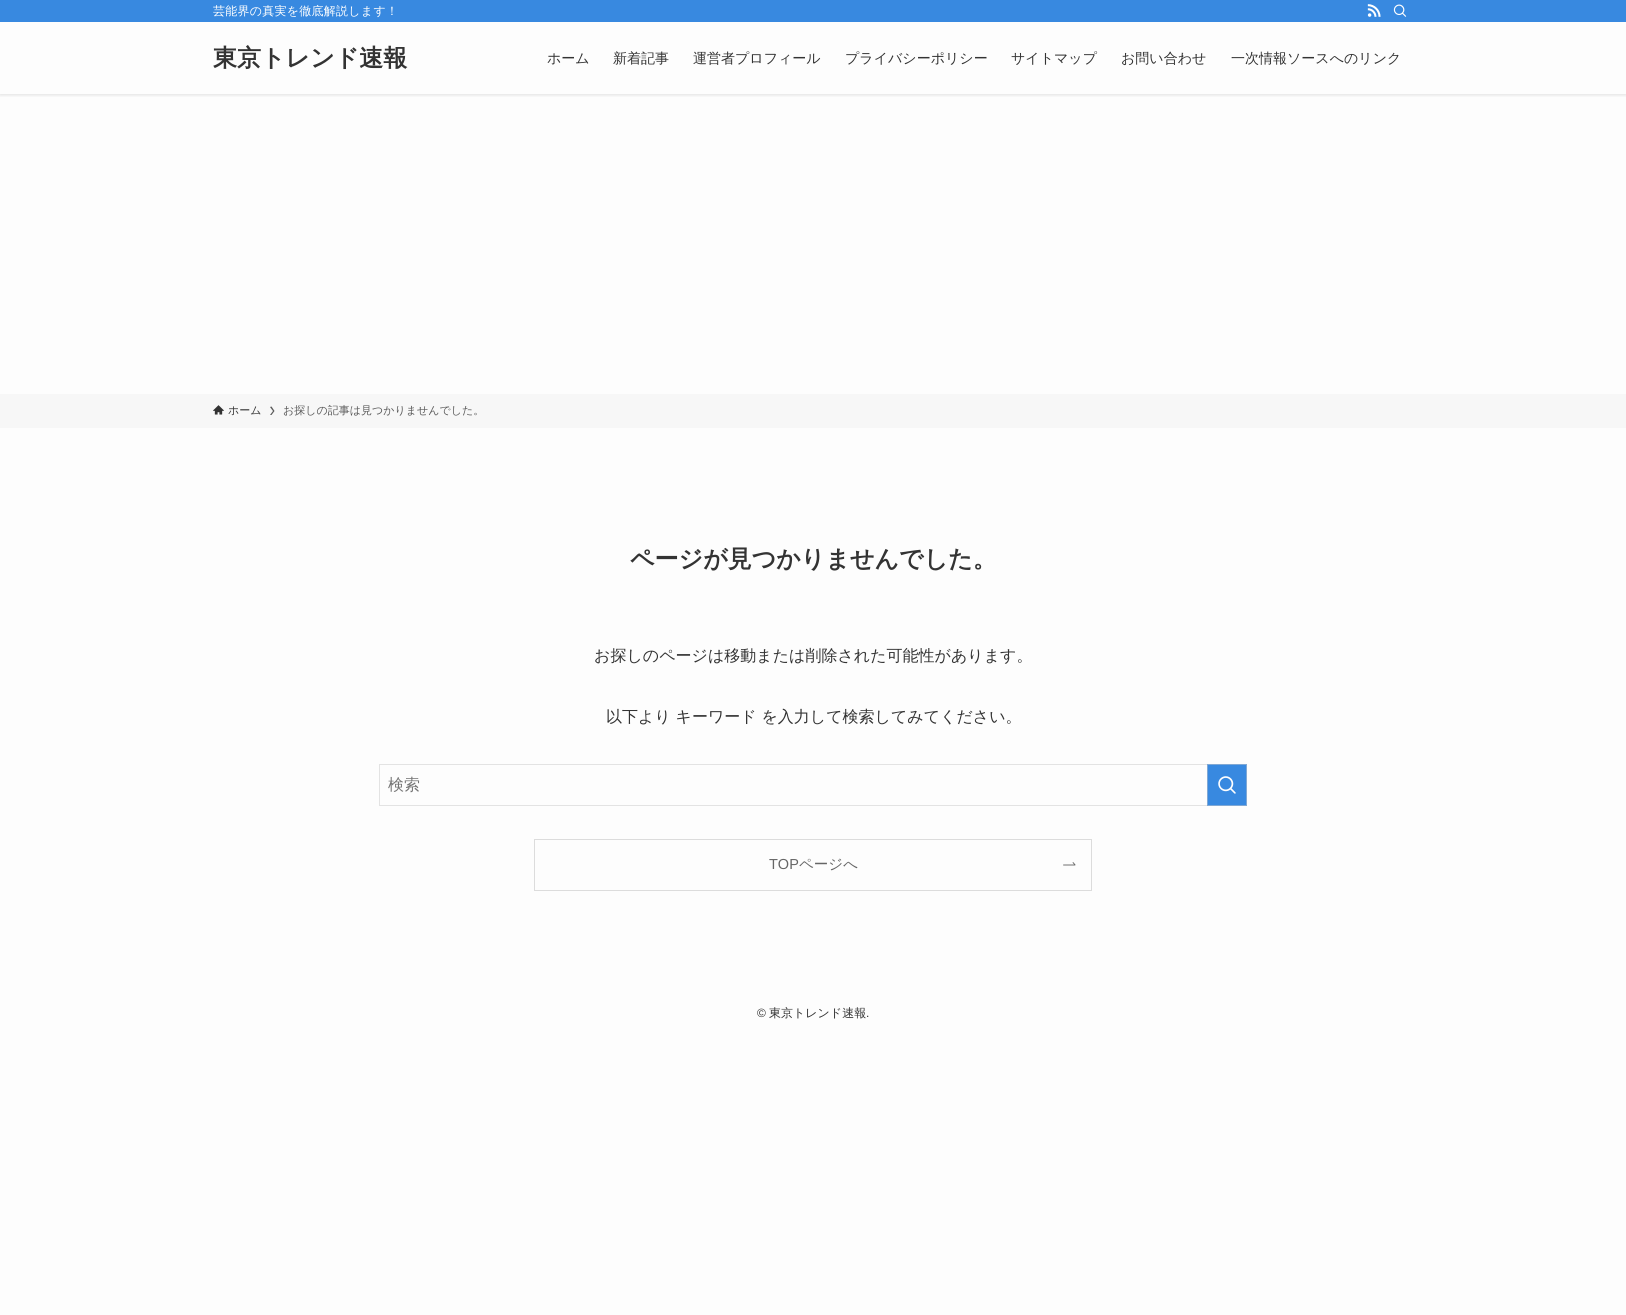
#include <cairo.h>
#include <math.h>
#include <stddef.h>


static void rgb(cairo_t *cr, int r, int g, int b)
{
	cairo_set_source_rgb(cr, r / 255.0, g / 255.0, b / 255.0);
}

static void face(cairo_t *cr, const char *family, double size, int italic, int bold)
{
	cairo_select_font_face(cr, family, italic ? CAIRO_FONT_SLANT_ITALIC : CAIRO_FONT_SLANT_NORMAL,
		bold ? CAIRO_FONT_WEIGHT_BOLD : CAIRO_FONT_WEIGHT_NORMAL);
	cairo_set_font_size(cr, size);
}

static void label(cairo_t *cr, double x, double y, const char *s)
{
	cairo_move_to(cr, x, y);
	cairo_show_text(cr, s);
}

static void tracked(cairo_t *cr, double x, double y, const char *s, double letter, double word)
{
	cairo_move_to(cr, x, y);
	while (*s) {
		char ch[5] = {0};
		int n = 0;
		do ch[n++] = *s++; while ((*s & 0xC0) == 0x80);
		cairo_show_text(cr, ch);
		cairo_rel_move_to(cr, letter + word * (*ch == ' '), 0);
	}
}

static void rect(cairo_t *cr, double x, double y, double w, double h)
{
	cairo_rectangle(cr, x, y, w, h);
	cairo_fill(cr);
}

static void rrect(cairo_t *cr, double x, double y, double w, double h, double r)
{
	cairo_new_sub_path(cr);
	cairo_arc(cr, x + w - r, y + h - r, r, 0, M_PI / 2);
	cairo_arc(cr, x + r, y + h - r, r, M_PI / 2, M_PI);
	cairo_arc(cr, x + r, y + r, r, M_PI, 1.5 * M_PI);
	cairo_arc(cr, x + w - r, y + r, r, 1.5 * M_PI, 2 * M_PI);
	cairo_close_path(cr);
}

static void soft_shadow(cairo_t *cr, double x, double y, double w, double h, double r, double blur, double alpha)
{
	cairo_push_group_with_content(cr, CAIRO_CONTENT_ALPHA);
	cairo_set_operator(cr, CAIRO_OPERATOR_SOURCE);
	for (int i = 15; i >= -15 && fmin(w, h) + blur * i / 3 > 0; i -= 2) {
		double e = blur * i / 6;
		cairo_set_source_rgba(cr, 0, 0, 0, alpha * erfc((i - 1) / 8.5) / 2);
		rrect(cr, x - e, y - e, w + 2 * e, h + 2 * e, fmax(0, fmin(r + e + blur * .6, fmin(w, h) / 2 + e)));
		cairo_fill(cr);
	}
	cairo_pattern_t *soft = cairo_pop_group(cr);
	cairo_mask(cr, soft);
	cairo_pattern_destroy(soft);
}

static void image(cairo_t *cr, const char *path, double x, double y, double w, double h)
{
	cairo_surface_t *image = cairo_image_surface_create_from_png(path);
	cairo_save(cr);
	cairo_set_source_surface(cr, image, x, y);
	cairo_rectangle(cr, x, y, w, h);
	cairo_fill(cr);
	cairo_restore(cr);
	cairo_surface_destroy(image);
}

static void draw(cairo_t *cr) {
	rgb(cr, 253, 253, 253);
	cairo_paint(cr);
	cairo_save(cr);
	cairo_rectangle(cr, 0, 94, 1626, 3);
	cairo_clip(cr);
	rgb(cr, 0, 0, 0);
	soft_shadow(cr, 0, 1, 1626, 94, 0, 2, 0.12);
	cairo_restore(cr);
	rgb(cr, 56, 137, 224);
	rect(cr, 0, 0, 1626, 22);
	face(cr, "WenQuanYi Zen Hei Medium", 12, 0, 0);
	rgb(cr, 255, 255, 255);
	tracked(cr, 213, 15, "芸能界の真実を徹底解説します！", 0.25, 0);
	image(cr, "image0.png", 1367, 4, 14, 13);
	image(cr, "image1.png", 1393, 4, 14, 13);
	face(cr, "WenQuanYi Zen Hei", 24, 0, 1);
	rgb(cr, 51, 51, 51);
	label(cr, 213, 66, "東京トレンド速報");
	face(cr, "WenQuanYi Zen Hei Medium", 14, 0, 0);
	label(cr, 547, 63, "ホーム");
	label(cr, 613, 63, "新着記事");
	label(cr, 693, 63, "運営者プロフィール");
	label(cr, 845, 63, "プライバシーポリシー");
	label(cr, 1011, 63, "サイトマップ");
	label(cr, 1121, 63, "お問い合わせ");
	label(cr, 1231, 63, "一次情報ソースへのリンク");
	rgb(cr, 247, 247, 247);
	rect(cr, 0, 394, 1626, 34);
	image(cr, "image2.png", 213, 405, 11, 10);
	face(cr, "WenQuanYi Zen Hei Medium", 11, 0, 0);
	rgb(cr, 51, 51, 51);
	label(cr, 228, 414, "ホーム");
	rgb(cr, 90, 90, 90);
	cairo_new_path(cr);
	cairo_move_to(cr, 271.5, 406.5);
	cairo_line_to(cr, 270, 407);
	cairo_line_to(cr, 273, 411);
	cairo_line_to(cr, 270, 415);
	cairo_line_to(cr, 271.5, 415);
	cairo_line_to(cr, 274.5, 411);
	cairo_close_path(cr);
	cairo_fill(cr);
	label(cr, 283, 414, "お探しの記事は見つかりませんでした。");
	face(cr, "WenQuanYi Zen Hei", 24, 0, 1);
	rgb(cr, 51, 51, 51);
	label(cr, 630, 567, "ページが見つかりませんでした。");
	face(cr, "WenQuanYi Zen Hei Medium", 16, 0, 0);
	label(cr, 594, 661, "お探しのページは移動または削除された可能性があります。");
	label(cr, 606, 722, "以下より キーワード を入力して検索してみてください。");
	cairo_rectangle(cr, 379.5, 764.5, 867, 41);
	rgb(cr, 227, 227, 227);
	cairo_set_line_width(cr, 1);
	cairo_stroke(cr);
	rgb(cr, 117, 117, 117);
	label(cr, 388, 790, "検索");
	rgb(cr, 56, 137, 224);
	cairo_rectangle(cr, 1207.5, 764.5, 39, 41);
	cairo_fill_preserve(cr);
	rgb(cr, 128, 168, 212);
	cairo_stroke(cr);
	image(cr, "image3.png", 1218, 776, 18, 18);
	cairo_rectangle(cr, 534.5, 839.5, 557, 51);
	rgb(cr, 220, 220, 220);
	cairo_stroke(cr);
	face(cr, "Liberation Sans", 14.5, 0, 0);
	rgb(cr, 102, 102, 102);
	label(cr, 769, 869, "TOP");
	face(cr, "WenQuanYi Zen Hei Medium", 14.5, 0, 0);
	label(cr, 799, 869, "ページへ");
	image(cr, "image4.png", 1063, 862, 13, 4);
	face(cr, "Liberation Sans", 12, 0, 0);
	rgb(cr, 51, 51, 51);
	label(cr, 757, 1017, "©");
	face(cr, "WenQuanYi Zen Hei Medium", 12, 0, 0);
	label(cr, 769, 1017, "東京トレンド速報");
	face(cr, "Liberation Sans", 12, 0, 0);
	label(cr, 866, 1017, ".");
}

int main(void) {
	cairo_surface_t *surface = cairo_image_surface_create(CAIRO_FORMAT_RGB24, 1626, 1315);
	cairo_t *cr = cairo_create(surface);
	cairo_font_options_t *options = cairo_font_options_create();
	cairo_font_options_set_hint_metrics(options, CAIRO_HINT_METRICS_OFF);
	cairo_font_options_set_hint_style(options, CAIRO_HINT_STYLE_NONE);
	cairo_set_font_options(cr, options);
	cairo_set_miter_limit(cr, 4);
	draw(cr);
	cairo_surface_write_to_png(surface, "render.png");
	cairo_font_options_destroy(options);
	cairo_destroy(cr);
	cairo_surface_destroy(surface);
	return 0;
}
